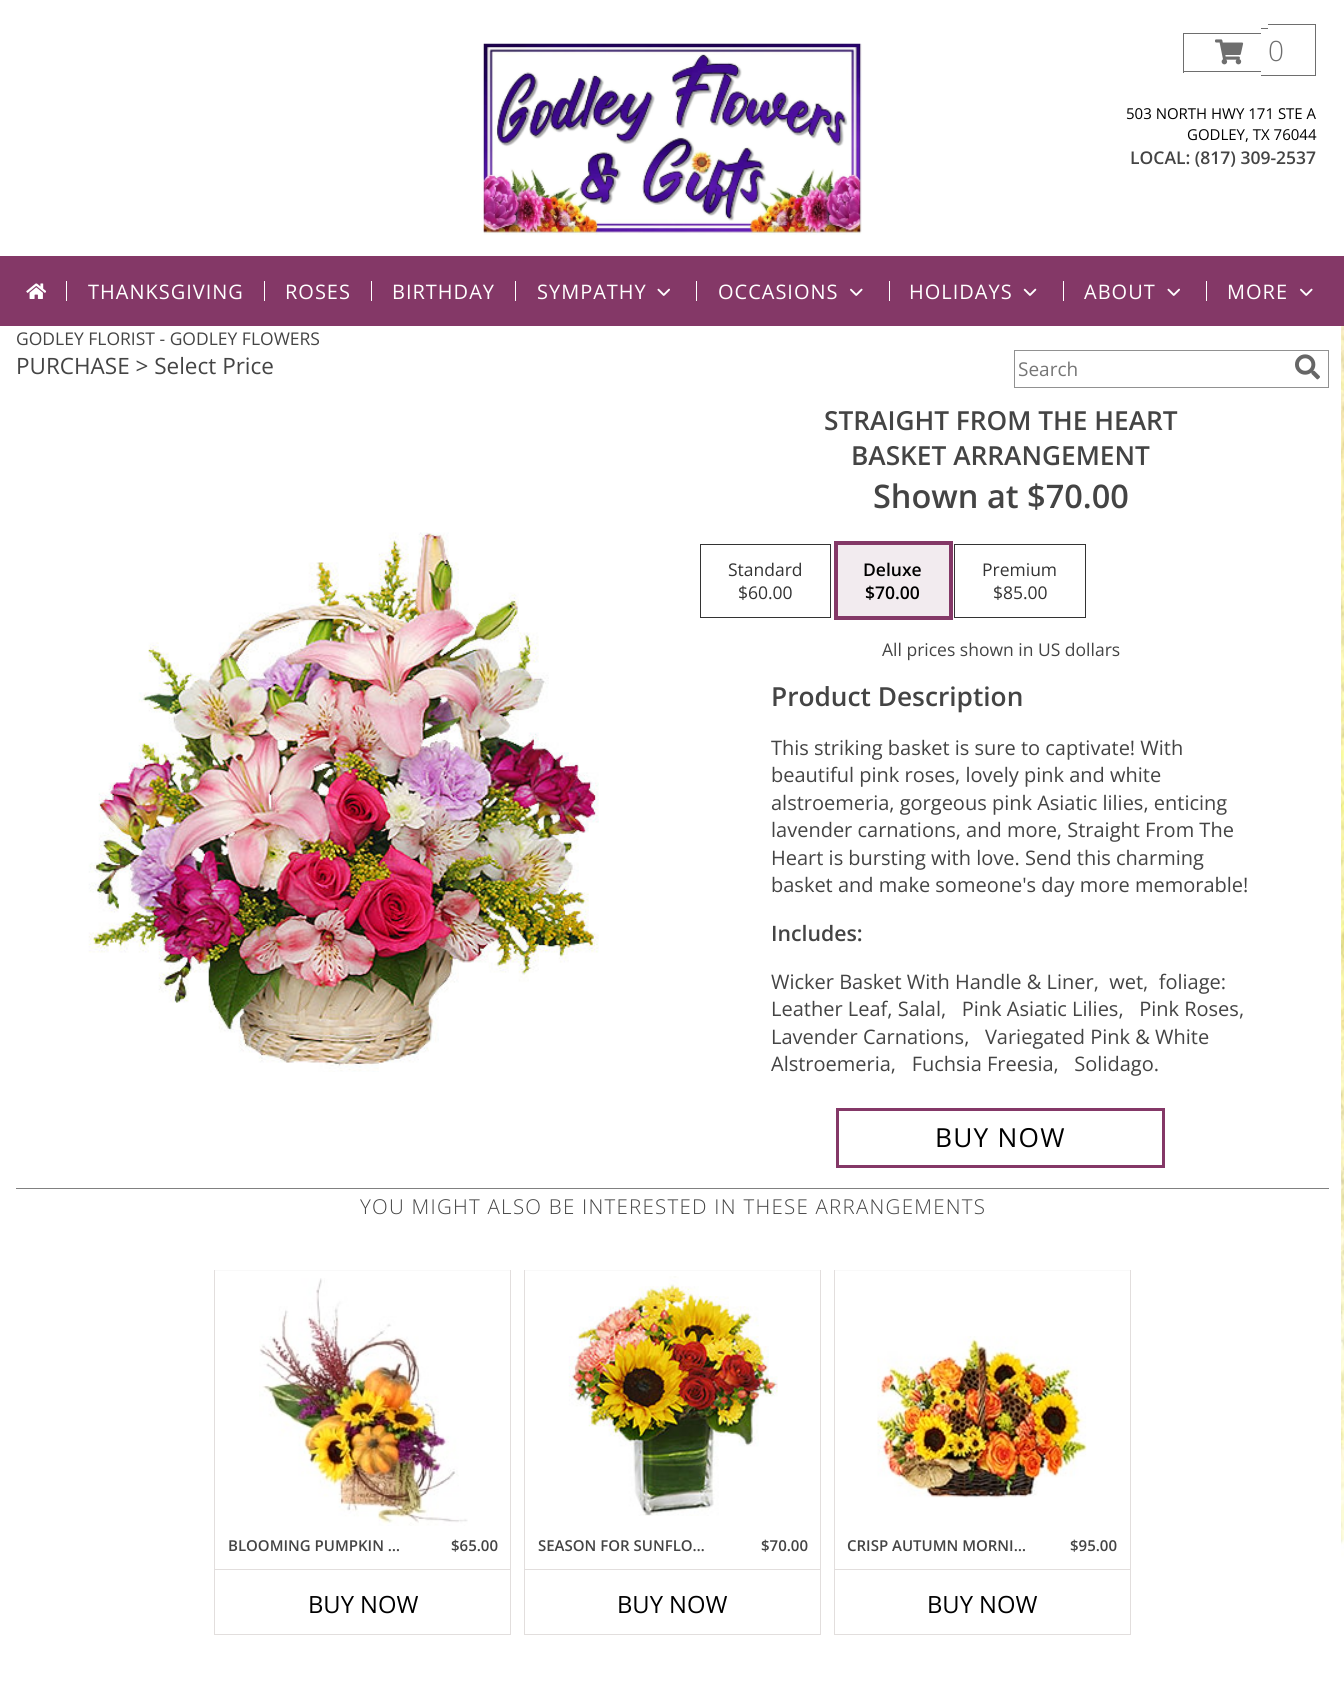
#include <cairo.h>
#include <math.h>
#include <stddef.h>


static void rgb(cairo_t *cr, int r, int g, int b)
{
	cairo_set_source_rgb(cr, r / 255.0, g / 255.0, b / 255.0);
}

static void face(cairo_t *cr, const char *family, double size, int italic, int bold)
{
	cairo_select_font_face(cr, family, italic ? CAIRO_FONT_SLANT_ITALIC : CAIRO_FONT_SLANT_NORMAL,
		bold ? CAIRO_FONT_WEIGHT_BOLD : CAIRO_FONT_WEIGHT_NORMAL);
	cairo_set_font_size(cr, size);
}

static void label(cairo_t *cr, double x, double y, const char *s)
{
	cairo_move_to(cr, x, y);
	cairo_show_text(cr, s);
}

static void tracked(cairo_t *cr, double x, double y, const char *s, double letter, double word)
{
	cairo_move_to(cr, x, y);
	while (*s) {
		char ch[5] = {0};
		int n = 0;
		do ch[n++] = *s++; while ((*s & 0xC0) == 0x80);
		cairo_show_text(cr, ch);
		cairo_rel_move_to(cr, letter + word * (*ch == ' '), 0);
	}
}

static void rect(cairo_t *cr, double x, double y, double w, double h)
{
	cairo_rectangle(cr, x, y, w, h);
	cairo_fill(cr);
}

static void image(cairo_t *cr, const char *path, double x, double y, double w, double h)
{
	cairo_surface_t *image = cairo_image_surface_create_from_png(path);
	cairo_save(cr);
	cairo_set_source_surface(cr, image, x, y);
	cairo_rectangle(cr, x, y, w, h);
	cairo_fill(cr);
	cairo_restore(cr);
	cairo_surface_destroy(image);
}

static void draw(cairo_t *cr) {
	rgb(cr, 255, 255, 255);
	cairo_paint(cr);
	image(cr, "image0.png", 1341, 326, 3, 1240);
	image(cr, "image1.png", 483, 43, 379, 192);
	rgb(cr, 110, 110, 110);
	rect(cr, 1183, 33, 78, 1);
	rect(cr, 1183, 71, 78, 1);
	rect(cr, 1183, 33, 1, 40);
	rect(cr, 1261, 28, 7, 1);
	rect(cr, 1261, 75, 7, 1);
	rect(cr, 1268, 24, 48, 1);
	rect(cr, 1315, 24, 1, 52);
	rect(cr, 1268, 75, 48, 1);
	image(cr, "image2.png", 1215, 39, 29, 26);
	face(cr, "Open Sans Light", 28, 0, 0);
	label(cr, 1268, 61, "0");
	face(cr, "Open Sans", 15, 0, 0);
	rgb(cr, 0, 0, 0);
	label(cr, 1126, 119, "503 NORTH HWY 171 STE A");
	label(cr, 1187, 140, "GODLEY, TX 76044");
	face(cr, "Open Sans SemiBold", 17.5, 0, 0);
	rgb(cr, 68, 68, 68);
	label(cr, 1130, 164, "LOCAL: (817) 309-2537");
	rgb(cr, 132, 56, 103);
	rect(cr, 0, 256, 1344, 70);
	image(cr, "image3.png", 26, 283, 20, 16);
	rgb(cr, 255, 255, 255);
	rect(cr, 66, 281, 1, 20);
	face(cr, "Open Sans", 20, 0, 0);
	tracked(cr, 88, 299, "THANKSGIVING", 1, 0);
	rect(cr, 264, 281, 1, 20);
	tracked(cr, 285, 299, "ROSES", 1, 0);
	rect(cr, 371, 281, 1, 20);
	tracked(cr, 392, 299, "BIRTHDAY", 1, 0);
	rect(cr, 515, 281, 1, 20);
	tracked(cr, 537, 299, "SYMPATHY", 1, 0);
	image(cr, "image4.png", 657, 288, 13, 8);
	rect(cr, 696, 281, 1, 20);
	tracked(cr, 718, 299, "OCCASIONS", 1, 0);
	image(cr, "image5.png", 850, 288, 13, 8);
	rect(cr, 889, 281, 1, 20);
	tracked(cr, 909, 299, "HOLIDAYS", 1, 0);
	image(cr, "image6.png", 1023, 288, 14, 8);
	rect(cr, 1063, 281, 1, 20);
	tracked(cr, 1084, 299, "ABOUT", 1, 0);
	image(cr, "image4.png", 1167, 288, 13, 8);
	rect(cr, 1206, 281, 1, 20);
	tracked(cr, 1227, 299, "MORE", 1, 0);
	image(cr, "image5.png", 1300, 288, 13, 8);
	face(cr, "Open Sans", 17.5, 0, 0);
	rgb(cr, 68, 68, 68);
	label(cr, 16, 345, "GODLEY FLORIST - GODLEY FLOWERS");
	face(cr, "Open Sans", 22.5, 0, 0);
	label(cr, 16, 374, "PURCHASE > Select Price");
	cairo_rectangle(cr, 1014.5, 350.5, 314, 37);
	rgb(cr, 145, 145, 145);
	cairo_set_line_width(cr, 1);
	cairo_stroke(cr);
	face(cr, "Open Sans", 19, 0, 0);
	rgb(cr, 117, 117, 117);
	label(cr, 1018, 376, "Search");
	image(cr, "image7.png", 1295, 354, 25, 26);
	image(cr, "image8.png", 88, 532, 511, 540);
	face(cr, "Open Sans SemiBold", 26.25, 0, 0);
	rgb(cr, 68, 68, 68);
	label(cr, 824, 430, "STRAIGHT FROM THE HEART");
	label(cr, 851, 465, "BASKET ARRANGEMENT");
	face(cr, "Open Sans SemiBold", 32.5, 0, 0);
	label(cr, 873, 508, "Shown at $70.00");
	cairo_rectangle(cr, 700.5, 544.5, 130, 73);
	rgb(cr, 51, 51, 51);
	cairo_stroke(cr);
	face(cr, "Open Sans", 17.5, 0, 0);
	label(cr, 728, 576, "Standard");
	label(cr, 738, 599, "$60.00");
	cairo_rectangle(cr, 836, 543, 115, 75);
	rgb(cr, 132, 56, 103);
	cairo_set_line_width(cr, 4);
	cairo_stroke(cr);
	rgb(cr, 242, 235, 239);
	rect(cr, 838, 545, 111, 71);
	face(cr, "Open Sans SemiBold", 17.5, 0, 0);
	rgb(cr, 0, 0, 0);
	label(cr, 863, 576, "Deluxe");
	label(cr, 865, 599, "$70.00");
	cairo_rectangle(cr, 954.5, 544.5, 131, 73);
	rgb(cr, 51, 51, 51);
	cairo_set_line_width(cr, 1);
	cairo_stroke(cr);
	face(cr, "Open Sans", 17.5, 0, 0);
	label(cr, 982, 576, "Premium");
	label(cr, 993, 599, "$85.00");
	rgb(cr, 68, 68, 68);
	label(cr, 882, 656, "All prices shown in US dollars");
	face(cr, "Open Sans SemiBold", 26.25, 0, 0);
	label(cr, 771, 706, "Product Description");
	face(cr, "Open Sans", 20, 0, 0);
	label(cr, 771, 755, "This striking basket is sure to captivate! With");
	label(cr, 771, 782, "beautiful pink roses, lovely pink and white");
	label(cr, 771, 810, "alstroemeria, gorgeous pink Asiatic lilies, enticing");
	label(cr, 771, 837, "lavender carnations, and more, Straight From The");
	label(cr, 771, 865, "Heart is bursting with love. Send this charming");
	label(cr, 771, 892, "basket and make someone's day more memorable!");
	face(cr, "Open Sans SemiBold", 21.25, 0, 0);
	label(cr, 771, 941, "Includes:");
	face(cr, "Open Sans", 20, 0, 0);
	label(cr, 771, 989, "Wicker Basket With Handle & Liner,  wet,  foliage:");
	label(cr, 771, 1016, "Leather Leaf, Salal,   Pink Asiatic Lilies,   Pink Roses,");
	label(cr, 771, 1044, "Lavender Carnations,   Variegated Pink & White");
	label(cr, 771, 1071, "Alstroemeria,   Fuchsia Freesia,   Solidago.");
	cairo_rectangle(cr, 837.5, 1109.5, 326, 57);
	rgb(cr, 132, 56, 103);
	cairo_set_line_width(cr, 3);
	cairo_stroke(cr);
	face(cr, "Open Sans", 26.25, 0, 0);
	rgb(cr, 0, 0, 0);
	tracked(cr, 935, 1147, "BUY NOW", 1.25, 0);
	rgb(cr, 128, 128, 128);
	rect(cr, 16, 1188, 1313, 1);
	face(cr, "Open Sans Light", 20.5, 0, 0);
	rgb(cr, 68, 68, 68);
	tracked(cr, 360, 1214, "YOU MIGHT ALSO BE INTERESTED IN THESE ARRANGEMENTS", 1.25, 0);
	rgb(cr, 249, 249, 249);
	rect(cr, 214, 1270, 297, 1);
	rgb(cr, 226, 222, 221);
	rect(cr, 510, 1270, 1, 365);
	rect(cr, 214, 1634, 297, 1);
	rect(cr, 214, 1270, 1, 365);
	image(cr, "image9.png", 259, 1278, 209, 248);
	face(cr, "Open Sans SemiBold", 15, 0, 0);
	rgb(cr, 68, 68, 68);
	label(cr, 228, 1551, "BLOOMING PUMPKIN …");
	label(cr, 451, 1551, "$65.00");
	rgb(cr, 226, 222, 221);
	rect(cr, 215, 1569, 295, 1);
	face(cr, "Open Sans", 23.75, 0, 0);
	rgb(cr, 0, 0, 0);
	label(cr, 308, 1613, "BUY NOW");
	rgb(cr, 249, 249, 249);
	rect(cr, 524, 1270, 297, 1);
	rgb(cr, 226, 222, 221);
	rect(cr, 820, 1270, 1, 365);
	rect(cr, 524, 1634, 297, 1);
	rect(cr, 524, 1270, 1, 365);
	image(cr, "image10.png", 568, 1276, 210, 240);
	face(cr, "Open Sans SemiBold", 15, 0, 0);
	rgb(cr, 68, 68, 68);
	label(cr, 538, 1551, "SEASON FOR SUNFLO…");
	label(cr, 761, 1551, "$70.00");
	rgb(cr, 226, 222, 221);
	rect(cr, 525, 1569, 295, 1);
	face(cr, "Open Sans", 23.75, 0, 0);
	rgb(cr, 0, 0, 0);
	label(cr, 617, 1613, "BUY NOW");
	rgb(cr, 249, 249, 249);
	rect(cr, 834, 1270, 297, 1);
	rgb(cr, 226, 222, 221);
	rect(cr, 1130, 1270, 1, 365);
	rect(cr, 834, 1634, 297, 1);
	rect(cr, 834, 1270, 1, 365);
	image(cr, "image11.png", 877, 1336, 210, 163);
	face(cr, "Open Sans SemiBold", 15, 0, 0);
	rgb(cr, 68, 68, 68);
	label(cr, 847, 1551, "CRISP AUTUMN MORNI…");
	label(cr, 1070, 1551, "$95.00");
	rgb(cr, 226, 222, 221);
	rect(cr, 835, 1569, 295, 1);
	face(cr, "Open Sans", 23.75, 0, 0);
	rgb(cr, 0, 0, 0);
	label(cr, 927, 1613, "BUY NOW");
}

int main(void) {
	cairo_surface_t *surface = cairo_image_surface_create(CAIRO_FORMAT_RGB24, 1344, 1691);
	cairo_t *cr = cairo_create(surface);
	cairo_font_options_t *options = cairo_font_options_create();
	cairo_font_options_set_hint_metrics(options, CAIRO_HINT_METRICS_OFF);
	cairo_font_options_set_hint_style(options, CAIRO_HINT_STYLE_NONE);
	cairo_set_font_options(cr, options);
	cairo_set_miter_limit(cr, 4);
	draw(cr);
	cairo_surface_write_to_png(surface, "render.png");
	cairo_font_options_destroy(options);
	cairo_destroy(cr);
	cairo_surface_destroy(surface);
	return 0;
}
